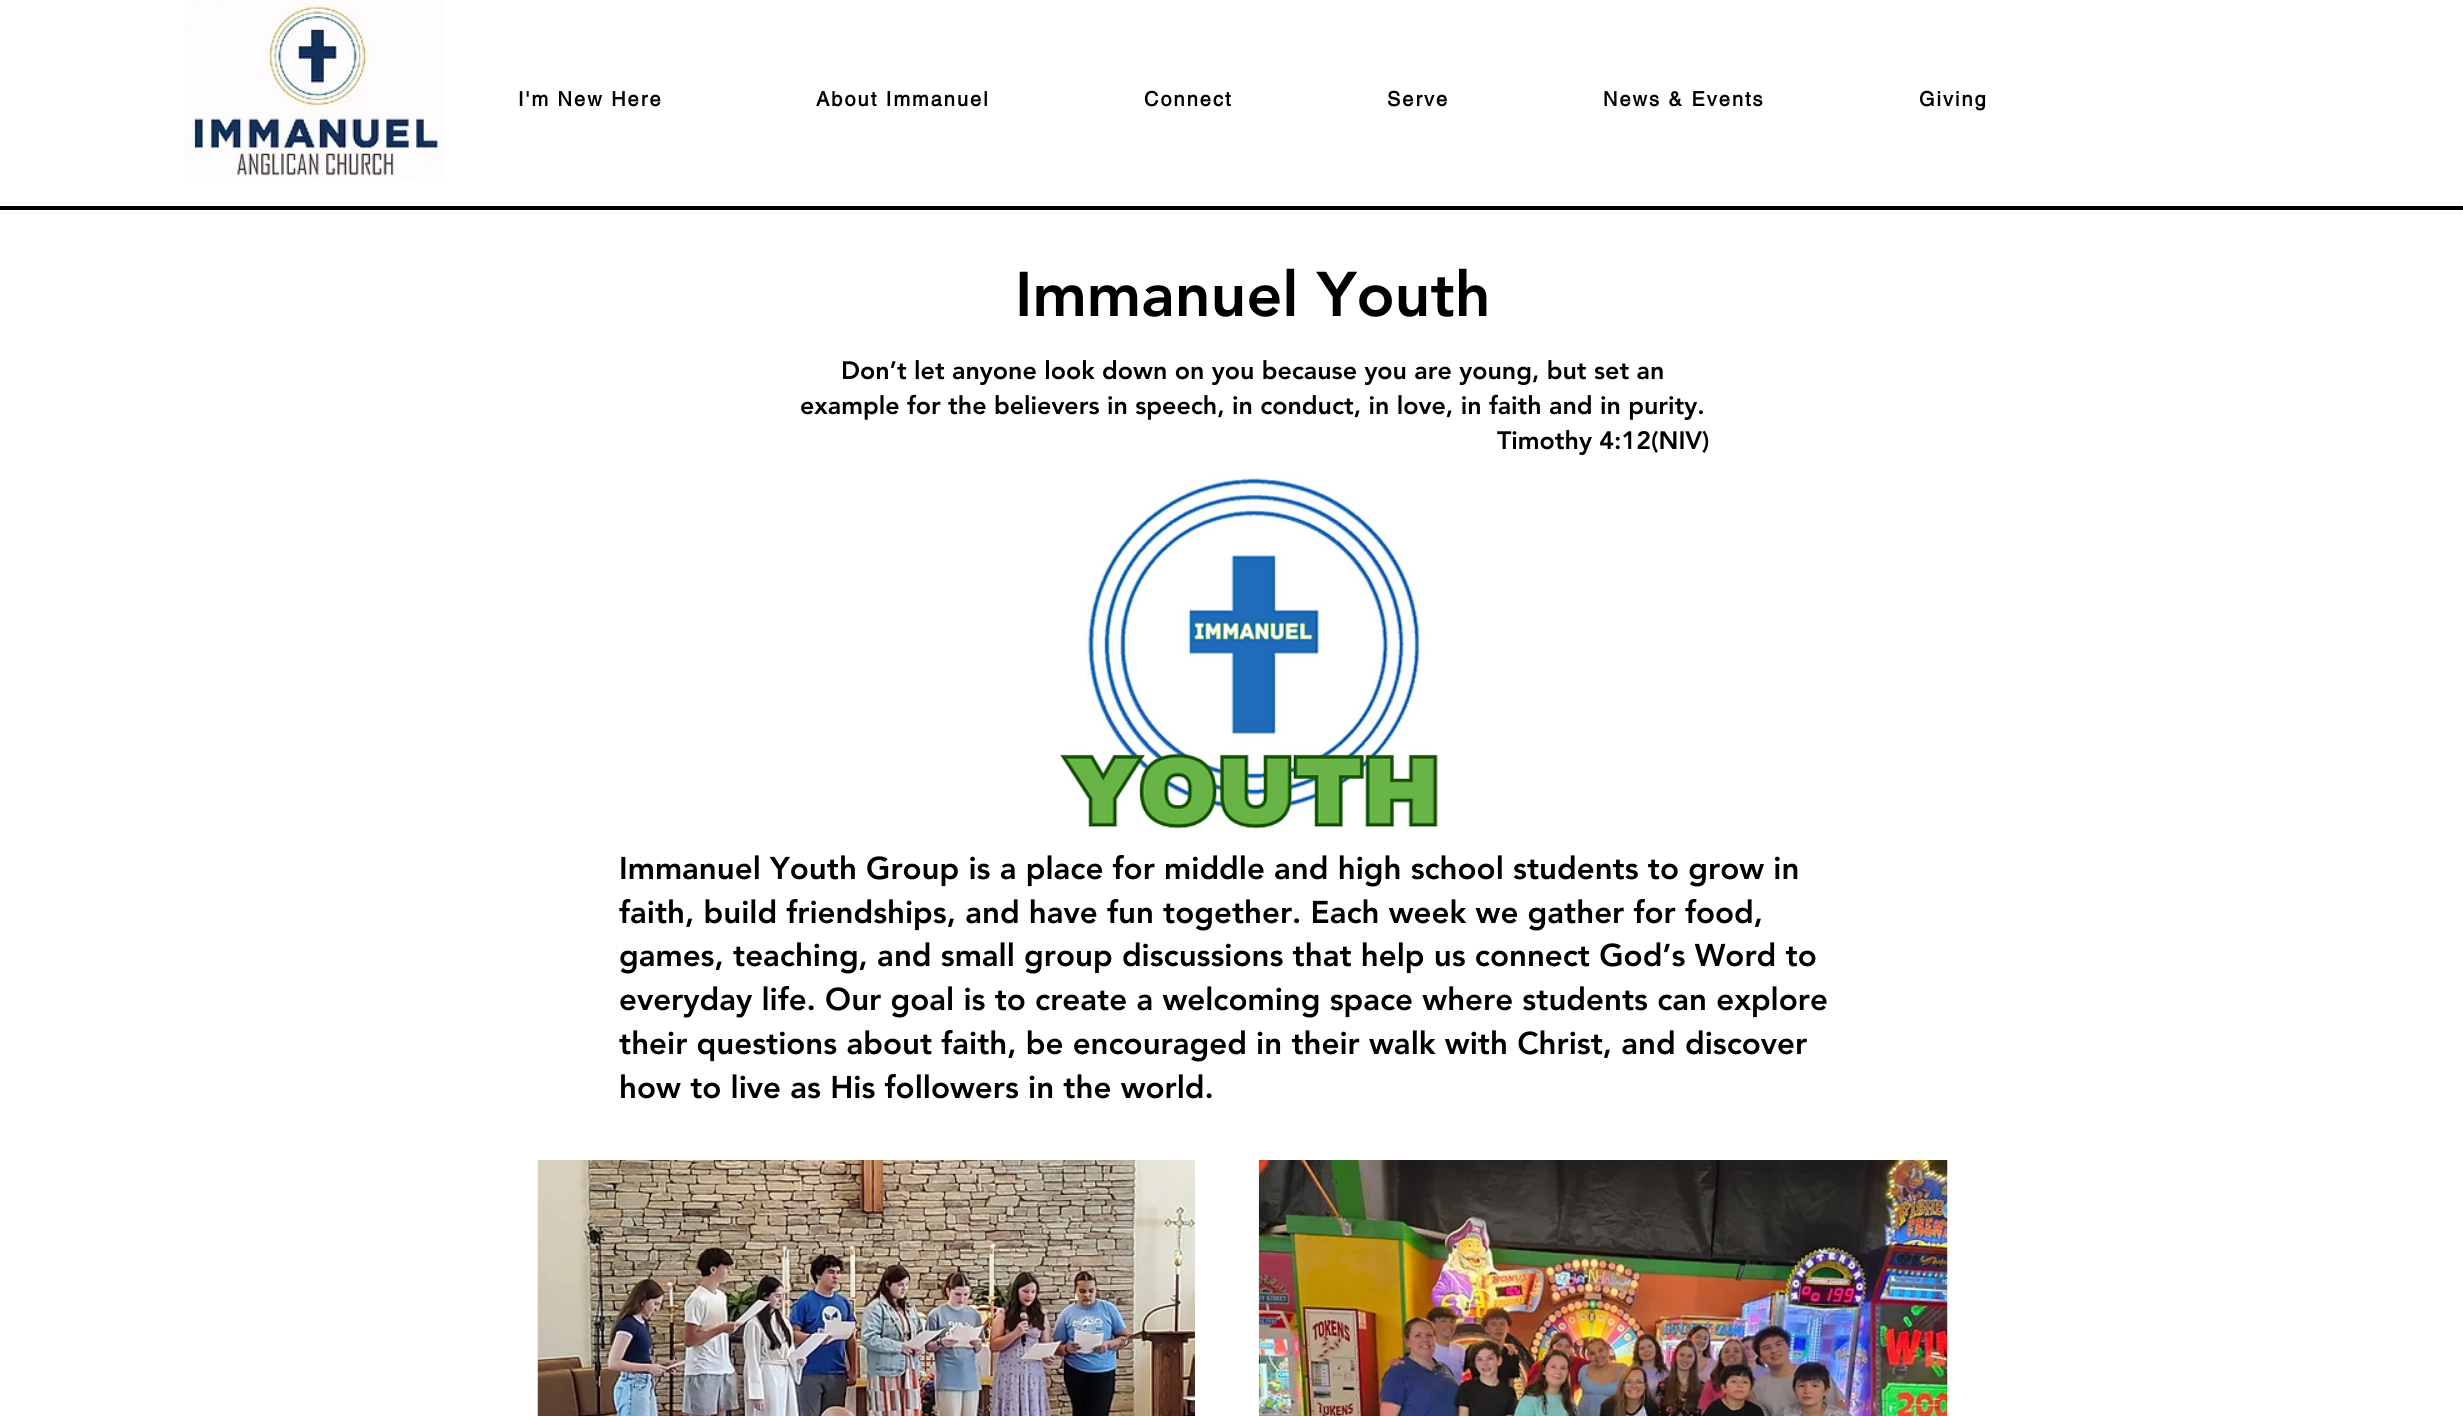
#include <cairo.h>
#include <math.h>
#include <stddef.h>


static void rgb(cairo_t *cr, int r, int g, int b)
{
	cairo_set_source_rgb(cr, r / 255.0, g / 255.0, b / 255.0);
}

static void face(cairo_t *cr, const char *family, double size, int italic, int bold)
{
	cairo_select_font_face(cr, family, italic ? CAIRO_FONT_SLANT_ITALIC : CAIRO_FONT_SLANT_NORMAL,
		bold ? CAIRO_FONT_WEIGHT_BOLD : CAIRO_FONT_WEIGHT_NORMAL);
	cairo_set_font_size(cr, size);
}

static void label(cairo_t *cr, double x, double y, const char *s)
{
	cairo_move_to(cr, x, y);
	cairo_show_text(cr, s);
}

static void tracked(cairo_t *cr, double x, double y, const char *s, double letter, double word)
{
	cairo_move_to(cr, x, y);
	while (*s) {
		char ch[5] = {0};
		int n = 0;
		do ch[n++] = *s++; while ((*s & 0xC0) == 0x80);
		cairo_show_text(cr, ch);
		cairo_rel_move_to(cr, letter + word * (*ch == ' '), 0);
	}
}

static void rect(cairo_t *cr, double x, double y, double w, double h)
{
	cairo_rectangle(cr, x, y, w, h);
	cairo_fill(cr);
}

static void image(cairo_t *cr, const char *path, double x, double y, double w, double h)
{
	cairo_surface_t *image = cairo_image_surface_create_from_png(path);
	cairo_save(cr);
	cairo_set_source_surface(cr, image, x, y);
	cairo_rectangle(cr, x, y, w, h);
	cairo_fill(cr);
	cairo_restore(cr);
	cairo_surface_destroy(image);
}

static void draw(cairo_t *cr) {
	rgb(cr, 255, 255, 255);
	cairo_paint(cr);
	image(cr, "image0.png", 184, 0, 260, 181);
	face(cr, "helvetica", 20, 0, 1);
	rgb(cr, 0, 0, 0);
	tracked(cr, 518, 106, "I'm New Here", 2, 0);
	tracked(cr, 816, 106, "About Immanuel", 2, 0);
	tracked(cr, 1144, 106, "Connect", 2, 0);
	tracked(cr, 1387, 106, "Serve", 2, 0);
	tracked(cr, 1603, 106, "News & Events", 2, 0);
	tracked(cr, 1919, 106, "Giving", 2, 0);
	rect(cr, 0, 206, 2463, 4);
	face(cr, "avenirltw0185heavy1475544 Black", 62.5, 0, 0);
	label(cr, 1015, 316, "Immanuel Youth");
	face(cr, "avenirltw0185heavy1475544 Black", 25, 0, 0);
	label(cr, 841, 379, "Don’t let anyone look down on you because you are young, but set an");
	label(cr, 800, 414, "example for the believers in speech, in conduct, in love, in faith and in purity.");
	label(cr, 1497, 449, "Timothy 4:12(NIV)");
	image(cr, "image1.png", 1059, 478, 379, 351);
	face(cr, "avenirltw0185heavy1475544 Black", 31.25, 0, 0);
	label(cr, 619, 879, "Immanuel Youth Group is a place for middle and high school students to grow in");
	label(cr, 619, 923, "faith, build friendships, and have fun together. Each week we gather for food,");
	label(cr, 619, 966, "games, teaching, and small group discussions that help us connect God’s Word to");
	label(cr, 619, 1010, "everyday life. Our goal is to create a welcoming space where students can explore");
	label(cr, 619, 1054, "their questions about faith, be encouraged in their walk with Christ, and discover");
	label(cr, 619, 1098, "how to live as His followers in the world.");
	image(cr, "image2.png", 537, 1160, 658, 256);
	image(cr, "image3.png", 1258, 1160, 690, 256);
}

int main(void) {
	cairo_surface_t *surface = cairo_image_surface_create(CAIRO_FORMAT_RGB24, 2463, 1416);
	cairo_t *cr = cairo_create(surface);
	cairo_font_options_t *options = cairo_font_options_create();
	cairo_font_options_set_hint_metrics(options, CAIRO_HINT_METRICS_OFF);
	cairo_font_options_set_hint_style(options, CAIRO_HINT_STYLE_NONE);
	cairo_set_font_options(cr, options);
	cairo_set_miter_limit(cr, 4);
	draw(cr);
	cairo_surface_write_to_png(surface, "render.png");
	cairo_font_options_destroy(options);
	cairo_destroy(cr);
	cairo_surface_destroy(surface);
	return 0;
}
